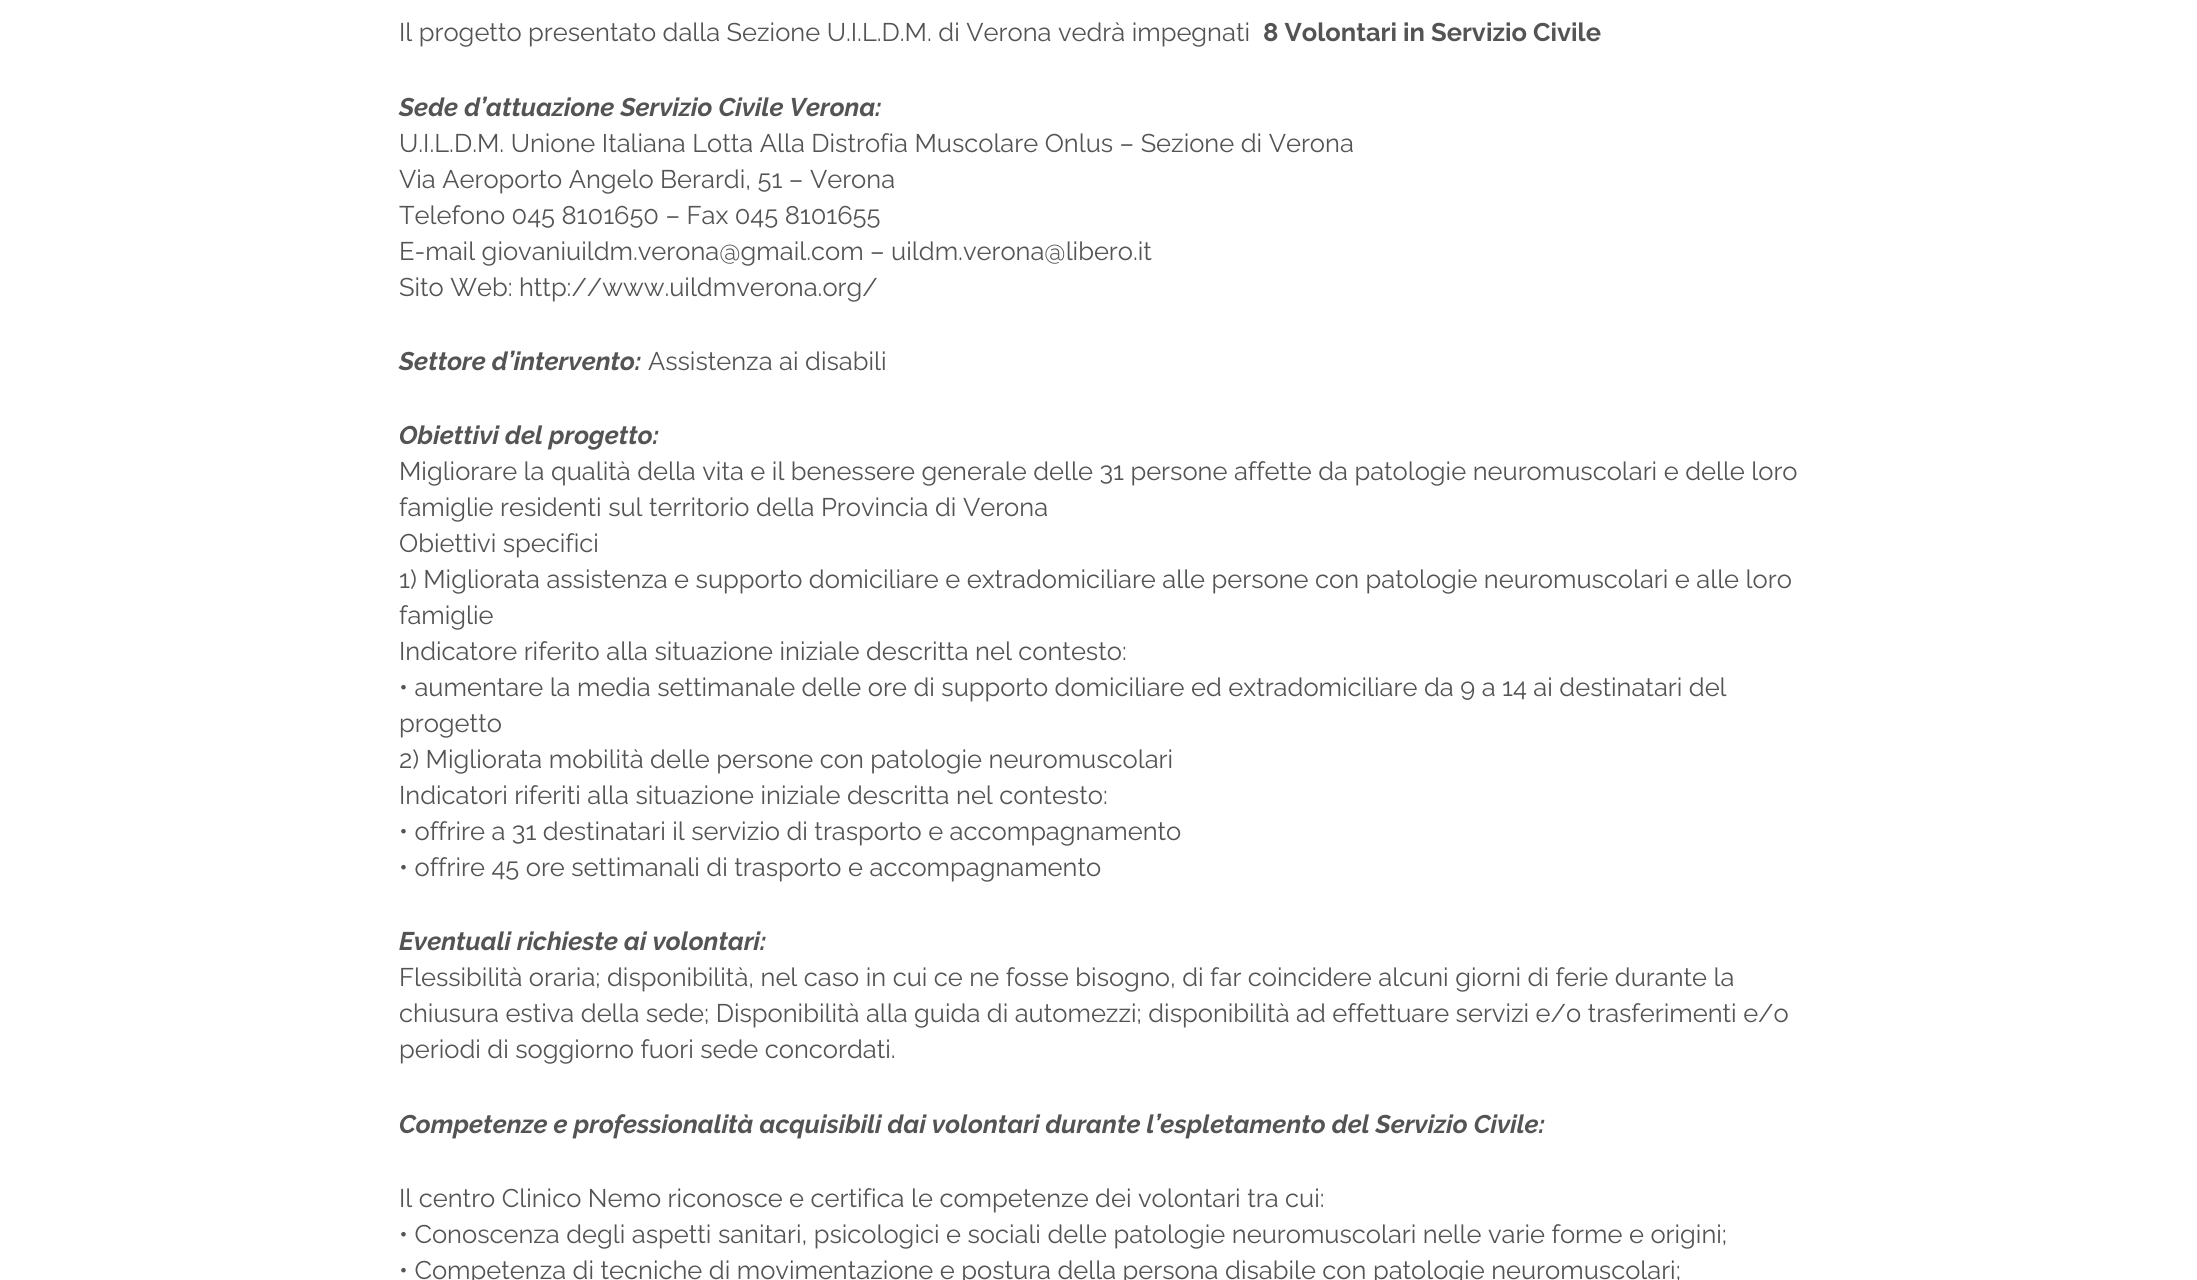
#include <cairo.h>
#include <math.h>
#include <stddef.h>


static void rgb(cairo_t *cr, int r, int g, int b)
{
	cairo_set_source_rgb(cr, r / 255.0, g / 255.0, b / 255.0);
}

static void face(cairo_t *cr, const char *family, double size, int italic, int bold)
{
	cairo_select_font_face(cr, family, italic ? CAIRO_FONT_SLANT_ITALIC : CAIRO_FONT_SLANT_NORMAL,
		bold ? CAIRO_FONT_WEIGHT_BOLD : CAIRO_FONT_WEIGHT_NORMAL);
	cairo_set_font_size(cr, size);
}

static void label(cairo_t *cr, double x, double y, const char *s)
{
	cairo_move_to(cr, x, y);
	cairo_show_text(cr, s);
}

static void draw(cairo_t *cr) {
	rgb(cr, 255, 255, 255);
	cairo_paint(cr);
	face(cr, "Raleway", 25.5, 0, 0);
	rgb(cr, 84, 84, 84);
	label(cr, 399, 41, "Il progetto presentato dalla Sezione U.I.L.D.M. di Verona vedrà impegnati");
	face(cr, "Raleway", 25.5, 0, 1);
	label(cr, 1263, 41, "8 Volontari in Servizio Civile");
	face(cr, "Raleway", 25.5, 1, 1);
	label(cr, 399, 116, "Sede d’attuazione Servizio Civile Verona:");
	face(cr, "Raleway", 25.5, 0, 0);
	label(cr, 399, 152, "U.I.L.D.M. Unione Italiana Lotta Alla Distrofia Muscolare Onlus – Sezione di Verona");
	label(cr, 399, 188, "Via Aeroporto Angelo Berardi, 51 – Verona");
	label(cr, 399, 224, "Telefono 045 8101650 – Fax 045 8101655");
	label(cr, 399, 260, "E-mail giovaniuildm.verona@gmail.com – uildm.verona@libero.it");
	label(cr, 399, 296, "Sito Web: http://www.uildmverona.org/");
	face(cr, "Raleway", 25.5, 1, 1);
	label(cr, 399, 370, "Settore d’intervento:");
	face(cr, "Raleway", 25.5, 0, 0);
	label(cr, 648, 370, "Assistenza ai disabili");
	face(cr, "Raleway", 25.5, 1, 1);
	label(cr, 399, 444, "Obiettivi del progetto:");
	face(cr, "Raleway", 25.5, 0, 0);
	label(cr, 399, 480, "Migliorare la qualità della vita e il benessere generale delle 31 persone affette da patologie neuromuscolari e delle loro");
	label(cr, 399, 516, "famiglie residenti sul territorio della Provincia di Verona");
	label(cr, 399, 552, "Obiettivi specifici");
	label(cr, 399, 588, "1) Migliorata assistenza e supporto domiciliare e extradomiciliare alle persone con patologie neuromuscolari e alle loro");
	label(cr, 399, 624, "famiglie");
	label(cr, 399, 660, "Indicatore riferito alla situazione iniziale descritta nel contesto:");
	label(cr, 399, 696, "• aumentare la media settimanale delle ore di supporto domiciliare ed extradomiciliare da 9 a 14 ai destinatari del");
	label(cr, 399, 732, "progetto");
	label(cr, 399, 768, "2) Migliorata mobilità delle persone con patologie neuromuscolari");
	label(cr, 399, 804, "Indicatori riferiti alla situazione iniziale descritta nel contesto:");
	label(cr, 399, 840, "• offrire a 31 destinatari il servizio di trasporto e accompagnamento");
	label(cr, 399, 876, "• offrire 45 ore settimanali di trasporto e accompagnamento");
	face(cr, "Raleway", 25.5, 1, 1);
	label(cr, 399, 950, "Eventuali richieste ai volontari:");
	face(cr, "Raleway", 25.5, 0, 0);
	label(cr, 399, 986, "Flessibilità oraria; disponibilità, nel caso in cui ce ne fosse bisogno, di far coincidere alcuni giorni di ferie durante la");
	label(cr, 399, 1022, "chiusura estiva della sede; Disponibilità alla guida di automezzi; disponibilità ad effettuare servizi e/o trasferimenti e/o");
	label(cr, 399, 1058, "periodi di soggiorno fuori sede concordati.");
	face(cr, "Raleway", 25.5, 1, 1);
	label(cr, 399, 1133, "Competenze e professionalità acquisibili dai volontari durante l’espletamento del Servizio Civile:");
	face(cr, "Raleway", 25.5, 0, 0);
	label(cr, 399, 1207, "Il centro Clinico Nemo riconosce e certifica le competenze dei volontari tra cui:");
	label(cr, 399, 1243, "• Conoscenza degli aspetti sanitari, psicologici e sociali delle patologie neuromuscolari nelle varie forme e origini;");
	label(cr, 399, 1279, "• Competenza di tecniche di movimentazione e postura della persona disabile con patologie neuromuscolari;");
}

int main(void) {
	cairo_surface_t *surface = cairo_image_surface_create(CAIRO_FORMAT_RGB24, 2197, 1280);
	cairo_t *cr = cairo_create(surface);
	cairo_font_options_t *options = cairo_font_options_create();
	cairo_font_options_set_hint_metrics(options, CAIRO_HINT_METRICS_OFF);
	cairo_font_options_set_hint_style(options, CAIRO_HINT_STYLE_NONE);
	cairo_set_font_options(cr, options);
	cairo_set_miter_limit(cr, 4);
	draw(cr);
	cairo_surface_write_to_png(surface, "render.png");
	cairo_font_options_destroy(options);
	cairo_destroy(cr);
	cairo_surface_destroy(surface);
	return 0;
}
